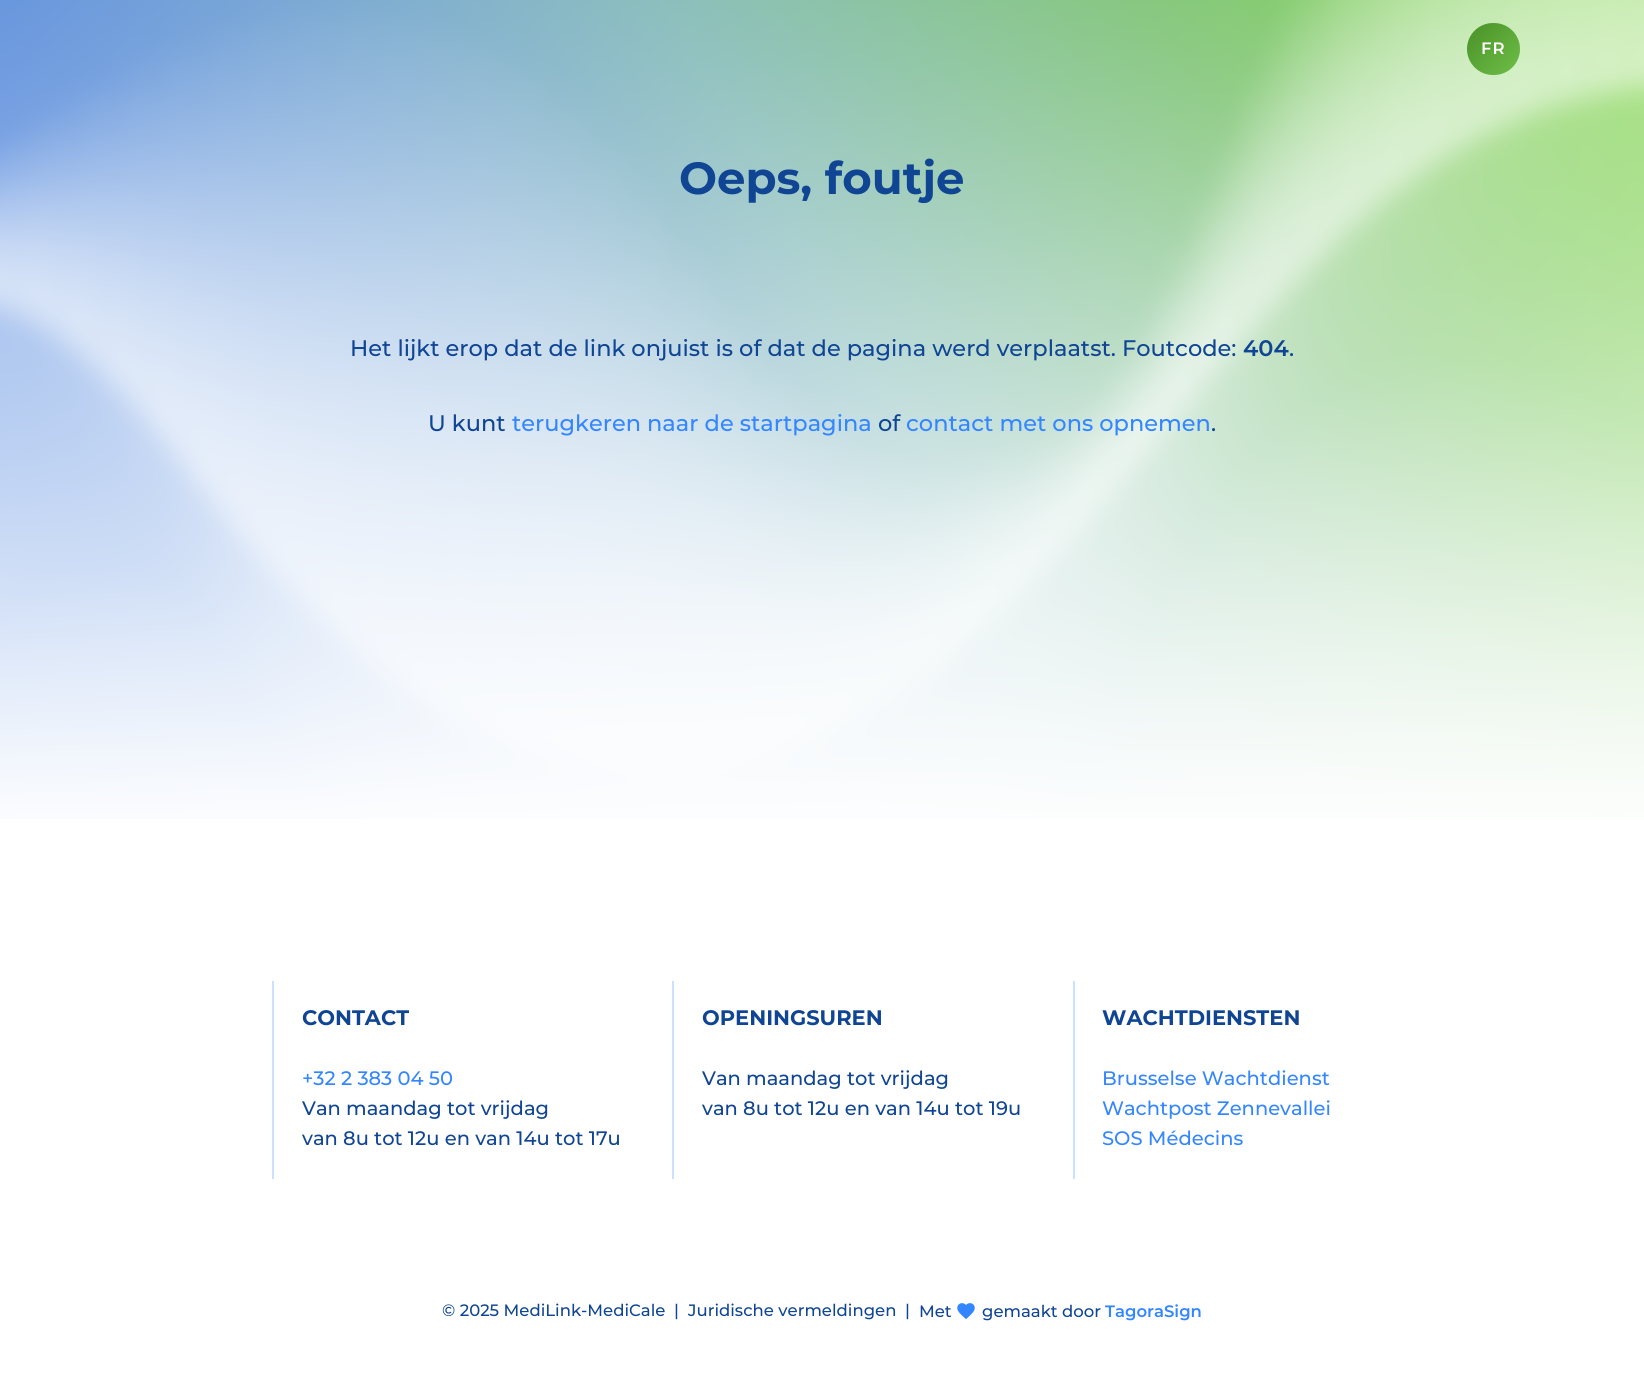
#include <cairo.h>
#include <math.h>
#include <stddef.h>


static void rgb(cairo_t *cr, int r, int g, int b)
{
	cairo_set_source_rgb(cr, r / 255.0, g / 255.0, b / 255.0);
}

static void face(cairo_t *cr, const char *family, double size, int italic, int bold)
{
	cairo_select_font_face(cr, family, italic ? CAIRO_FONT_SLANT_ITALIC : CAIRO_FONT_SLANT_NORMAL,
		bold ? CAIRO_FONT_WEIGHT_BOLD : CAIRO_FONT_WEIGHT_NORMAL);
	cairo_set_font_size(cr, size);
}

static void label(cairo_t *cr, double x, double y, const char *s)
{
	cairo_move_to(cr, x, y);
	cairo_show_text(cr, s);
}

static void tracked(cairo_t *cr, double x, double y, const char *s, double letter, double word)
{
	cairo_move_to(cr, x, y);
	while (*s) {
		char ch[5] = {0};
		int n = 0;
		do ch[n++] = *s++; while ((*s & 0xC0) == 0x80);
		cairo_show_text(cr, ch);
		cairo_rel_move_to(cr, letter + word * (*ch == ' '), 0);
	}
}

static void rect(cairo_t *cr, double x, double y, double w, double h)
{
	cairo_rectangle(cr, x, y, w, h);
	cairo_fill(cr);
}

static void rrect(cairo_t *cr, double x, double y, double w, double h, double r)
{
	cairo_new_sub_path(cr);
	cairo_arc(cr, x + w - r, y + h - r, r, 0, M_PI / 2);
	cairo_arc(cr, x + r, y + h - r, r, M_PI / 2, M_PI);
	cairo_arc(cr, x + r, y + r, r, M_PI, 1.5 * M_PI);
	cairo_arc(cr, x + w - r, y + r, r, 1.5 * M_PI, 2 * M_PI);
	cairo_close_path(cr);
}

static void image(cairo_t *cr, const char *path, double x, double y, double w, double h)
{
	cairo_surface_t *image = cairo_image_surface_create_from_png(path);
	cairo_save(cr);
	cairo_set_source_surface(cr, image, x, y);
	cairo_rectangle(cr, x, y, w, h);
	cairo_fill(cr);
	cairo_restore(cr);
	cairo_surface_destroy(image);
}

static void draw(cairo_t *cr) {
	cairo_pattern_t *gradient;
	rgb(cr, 255, 255, 255);
	cairo_paint(cr);
	image(cr, "image0.png", 0, 0, 1644, 819);
	gradient = cairo_pattern_create_linear(1467, 23, 1520, 75);
	cairo_pattern_add_color_stop_rgba(gradient, 0, 0.286, 0.565, 0.153, 1);
	cairo_pattern_add_color_stop_rgba(gradient, 1, 0.435, 0.749, 0.282, 1);
	cairo_set_source(cr, gradient);
	cairo_pattern_destroy(gradient);
	rrect(cr, 1467, 23, 53, 52, 26);
	cairo_fill(cr);
	face(cr, "Montserrat SemiBold", 16.5, 0, 0);
	rgb(cr, 255, 255, 255);
	tracked(cr, 1481, 54, "FR", 1, 0);
	face(cr, "Montserrat", 45, 0, 1);
	rgb(cr, 15, 69, 147);
	label(cr, 679, 194, "Oeps, foutje");
	face(cr, "Montserrat Medium", 22.5, 0, 0);
	label(cr, 350, 356, "Het lijkt erop dat de link onjuist is of dat de pagina werd verplaatst. Foutcode:");
	face(cr, "Montserrat SemiBold", 22.5, 0, 0);
	label(cr, 1243, 356, "404");
	face(cr, "Montserrat Medium", 22.5, 0, 0);
	label(cr, 1289, 356, ".");
	label(cr, 428, 431, "U kunt");
	rgb(cr, 51, 134, 255);
	label(cr, 512, 431, "terugkeren naar de startpagina");
	rgb(cr, 15, 69, 147);
	label(cr, 878, 431, "of");
	rgb(cr, 51, 134, 255);
	label(cr, 906, 431, "contact met ons opnemen");
	rgb(cr, 15, 69, 147);
	label(cr, 1211, 431, ".");
	rgb(cr, 204, 225, 255);
	rect(cr, 272, 981, 2, 198);
	face(cr, "Montserrat", 21, 0, 1);
	rgb(cr, 15, 69, 147);
	label(cr, 302, 1025, "CONTACT");
	face(cr, "Montserrat Medium", 19.5, 0, 0);
	rgb(cr, 51, 134, 255);
	label(cr, 302, 1085, "+32 2 383 04 50");
	rgb(cr, 15, 69, 147);
	label(cr, 302, 1115, "Van maandag tot vrijdag");
	label(cr, 302, 1145, "van 8u tot 12u en van 14u tot 17u");
	rgb(cr, 204, 225, 255);
	rect(cr, 672, 981, 2, 198);
	face(cr, "Montserrat", 21, 0, 1);
	rgb(cr, 15, 69, 147);
	label(cr, 702, 1025, "OPENINGSUREN");
	face(cr, "Montserrat Medium", 19.5, 0, 0);
	label(cr, 702, 1085, "Van maandag tot vrijdag");
	label(cr, 702, 1115, "van 8u tot 12u en van 14u tot 19u");
	rgb(cr, 204, 225, 255);
	rect(cr, 1073, 981, 2, 198);
	face(cr, "Montserrat", 21, 0, 1);
	rgb(cr, 15, 69, 147);
	label(cr, 1102, 1025, "WACHTDIENSTEN");
	face(cr, "Montserrat Medium", 19.5, 0, 0);
	rgb(cr, 51, 134, 255);
	label(cr, 1102, 1085, "Brusselse Wachtdienst");
	label(cr, 1102, 1115, "Wachtpost Zennevallei");
	label(cr, 1102, 1145, "SOS Médecins");
	face(cr, "Montserrat Medium", 16.5, 0, 0);
	rgb(cr, 15, 69, 147);
	label(cr, 442, 1316, "© 2025 MediLink-MediCale");
	label(cr, 674, 1316, "|");
	label(cr, 688, 1316, "Juridische vermeldingen");
	label(cr, 905, 1316, "|");
	label(cr, 919, 1317, "Met");
	image(cr, "image1.png", 957, 1303, 18, 16);
	label(cr, 982, 1317, "gemaakt door");
	face(cr, "Montserrat SemiBold", 16.5, 0, 0);
	rgb(cr, 51, 134, 255);
	label(cr, 1105, 1317, "TagoraSign");
}

int main(void) {
	cairo_surface_t *surface = cairo_image_surface_create(CAIRO_FORMAT_RGB24, 1644, 1384);
	cairo_t *cr = cairo_create(surface);
	cairo_font_options_t *options = cairo_font_options_create();
	cairo_font_options_set_hint_metrics(options, CAIRO_HINT_METRICS_OFF);
	cairo_font_options_set_hint_style(options, CAIRO_HINT_STYLE_NONE);
	cairo_set_font_options(cr, options);
	cairo_set_miter_limit(cr, 4);
	draw(cr);
	cairo_surface_write_to_png(surface, "render.png");
	cairo_font_options_destroy(options);
	cairo_destroy(cr);
	cairo_surface_destroy(surface);
	return 0;
}
